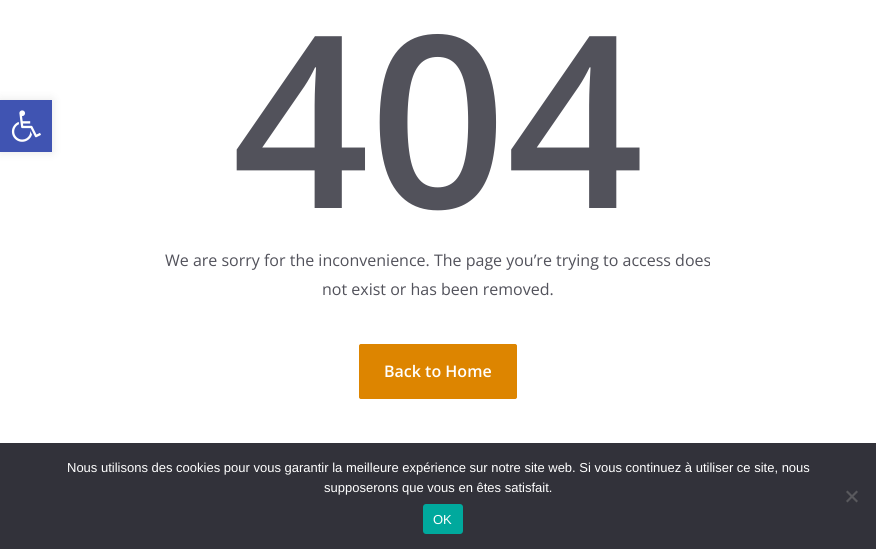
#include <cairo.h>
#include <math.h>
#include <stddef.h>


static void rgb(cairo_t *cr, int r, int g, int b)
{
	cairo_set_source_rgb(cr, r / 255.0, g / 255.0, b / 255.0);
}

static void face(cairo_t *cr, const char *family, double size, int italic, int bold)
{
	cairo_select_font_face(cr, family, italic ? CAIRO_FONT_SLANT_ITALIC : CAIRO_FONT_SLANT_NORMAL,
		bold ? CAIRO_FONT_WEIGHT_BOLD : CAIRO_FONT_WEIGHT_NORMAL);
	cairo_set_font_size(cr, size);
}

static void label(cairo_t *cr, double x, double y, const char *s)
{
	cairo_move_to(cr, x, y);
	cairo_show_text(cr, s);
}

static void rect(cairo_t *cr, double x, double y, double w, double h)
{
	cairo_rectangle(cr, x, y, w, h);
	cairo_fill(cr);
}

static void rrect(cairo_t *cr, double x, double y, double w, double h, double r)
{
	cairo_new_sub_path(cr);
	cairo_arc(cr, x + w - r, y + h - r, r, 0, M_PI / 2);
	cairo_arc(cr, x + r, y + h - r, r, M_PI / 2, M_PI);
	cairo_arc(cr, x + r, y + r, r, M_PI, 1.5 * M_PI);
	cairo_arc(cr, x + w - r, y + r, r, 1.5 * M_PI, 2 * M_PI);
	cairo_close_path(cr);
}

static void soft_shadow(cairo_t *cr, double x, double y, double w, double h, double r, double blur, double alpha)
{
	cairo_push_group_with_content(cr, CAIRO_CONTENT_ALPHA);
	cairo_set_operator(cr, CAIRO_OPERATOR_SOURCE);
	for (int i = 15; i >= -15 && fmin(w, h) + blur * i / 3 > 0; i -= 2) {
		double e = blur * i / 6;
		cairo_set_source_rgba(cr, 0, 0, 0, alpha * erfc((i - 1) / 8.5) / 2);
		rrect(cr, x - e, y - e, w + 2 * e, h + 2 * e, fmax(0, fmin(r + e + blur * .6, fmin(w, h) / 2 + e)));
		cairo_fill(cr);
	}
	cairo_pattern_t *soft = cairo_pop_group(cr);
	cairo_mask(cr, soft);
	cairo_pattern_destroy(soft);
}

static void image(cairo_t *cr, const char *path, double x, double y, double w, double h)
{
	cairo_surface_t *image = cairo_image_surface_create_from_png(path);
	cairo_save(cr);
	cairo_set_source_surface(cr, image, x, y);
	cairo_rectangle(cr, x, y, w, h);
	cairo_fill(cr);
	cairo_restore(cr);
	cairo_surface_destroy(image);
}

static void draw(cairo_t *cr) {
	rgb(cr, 255, 255, 255);
	cairo_paint(cr);
	rgb(cr, 0, 0, 0);
	soft_shadow(cr, 0, 100, 52, 52, 0, 5, 0.1);
	rgb(cr, 64, 84, 178);
	rect(cr, 0, 100, 52, 52);
	image(cr, "image0.png", 11, 110, 30, 32);
	face(cr, "Open Sans SemiBold", 240, 0, 0);
	rgb(cr, 82, 82, 91);
	label(cr, 232, 208, "404");
	face(cr, "Open Sans", 16, 0, 0);
	label(cr, 165, 266, "We are sorry for the inconvenience. The page you’re trying to access does");
	label(cr, 322, 295, "not exist or has been removed.");
	rgb(cr, 221, 133, 0);
	rrect(cr, 359.5, 344.5, 157, 54, 1.5);
	cairo_fill_preserve(cr);
	cairo_set_line_width(cr, 1);
	cairo_stroke(cr);
	face(cr, "Open Sans SemiBold", 16, 0, 0);
	rgb(cr, 255, 255, 255);
	label(cr, 384, 377, "Back to Home");
	rgb(cr, 50, 50, 58);
	rect(cr, 0, 443, 876, 106);
	face(cr, "Liberation Sans", 13, 0, 0);
	rgb(cr, 255, 255, 255);
	label(cr, 67, 472, "Nous utilisons des cookies pour vous garantir la meilleure expérience sur notre site web. Si vous continuez à utiliser ce site, nous");
	label(cr, 324, 492, "supposerons que vous en êtes satisfait.");
	rgb(cr, 89, 89, 93);
	cairo_new_path(cr);
	cairo_move_to(cr, 856.5, 490.5);
	cairo_line_to(cr, 858, 492);
	cairo_line_to(cr, 847.5, 502.5);
	cairo_line_to(cr, 846, 501);
	cairo_close_path(cr);
	cairo_fill(cr);
	cairo_new_path(cr);
	cairo_move_to(cr, 846, 492);
	cairo_line_to(cr, 847.5, 490.5);
	cairo_line_to(cr, 858, 501);
	cairo_line_to(cr, 856.5, 502.5);
	cairo_close_path(cr);
	cairo_fill(cr);
	rgb(cr, 0, 169, 157);
	rrect(cr, 423, 504, 40, 30, 3);
	cairo_fill(cr);
	rgb(cr, 255, 255, 255);
	label(cr, 433, 524, "OK");
}

int main(void) {
	cairo_surface_t *surface = cairo_image_surface_create(CAIRO_FORMAT_RGB24, 876, 549);
	cairo_t *cr = cairo_create(surface);
	cairo_font_options_t *options = cairo_font_options_create();
	cairo_font_options_set_hint_metrics(options, CAIRO_HINT_METRICS_OFF);
	cairo_font_options_set_hint_style(options, CAIRO_HINT_STYLE_NONE);
	cairo_set_font_options(cr, options);
	cairo_set_miter_limit(cr, 4);
	draw(cr);
	cairo_surface_write_to_png(surface, "render.png");
	cairo_font_options_destroy(options);
	cairo_destroy(cr);
	cairo_surface_destroy(surface);
	return 0;
}
